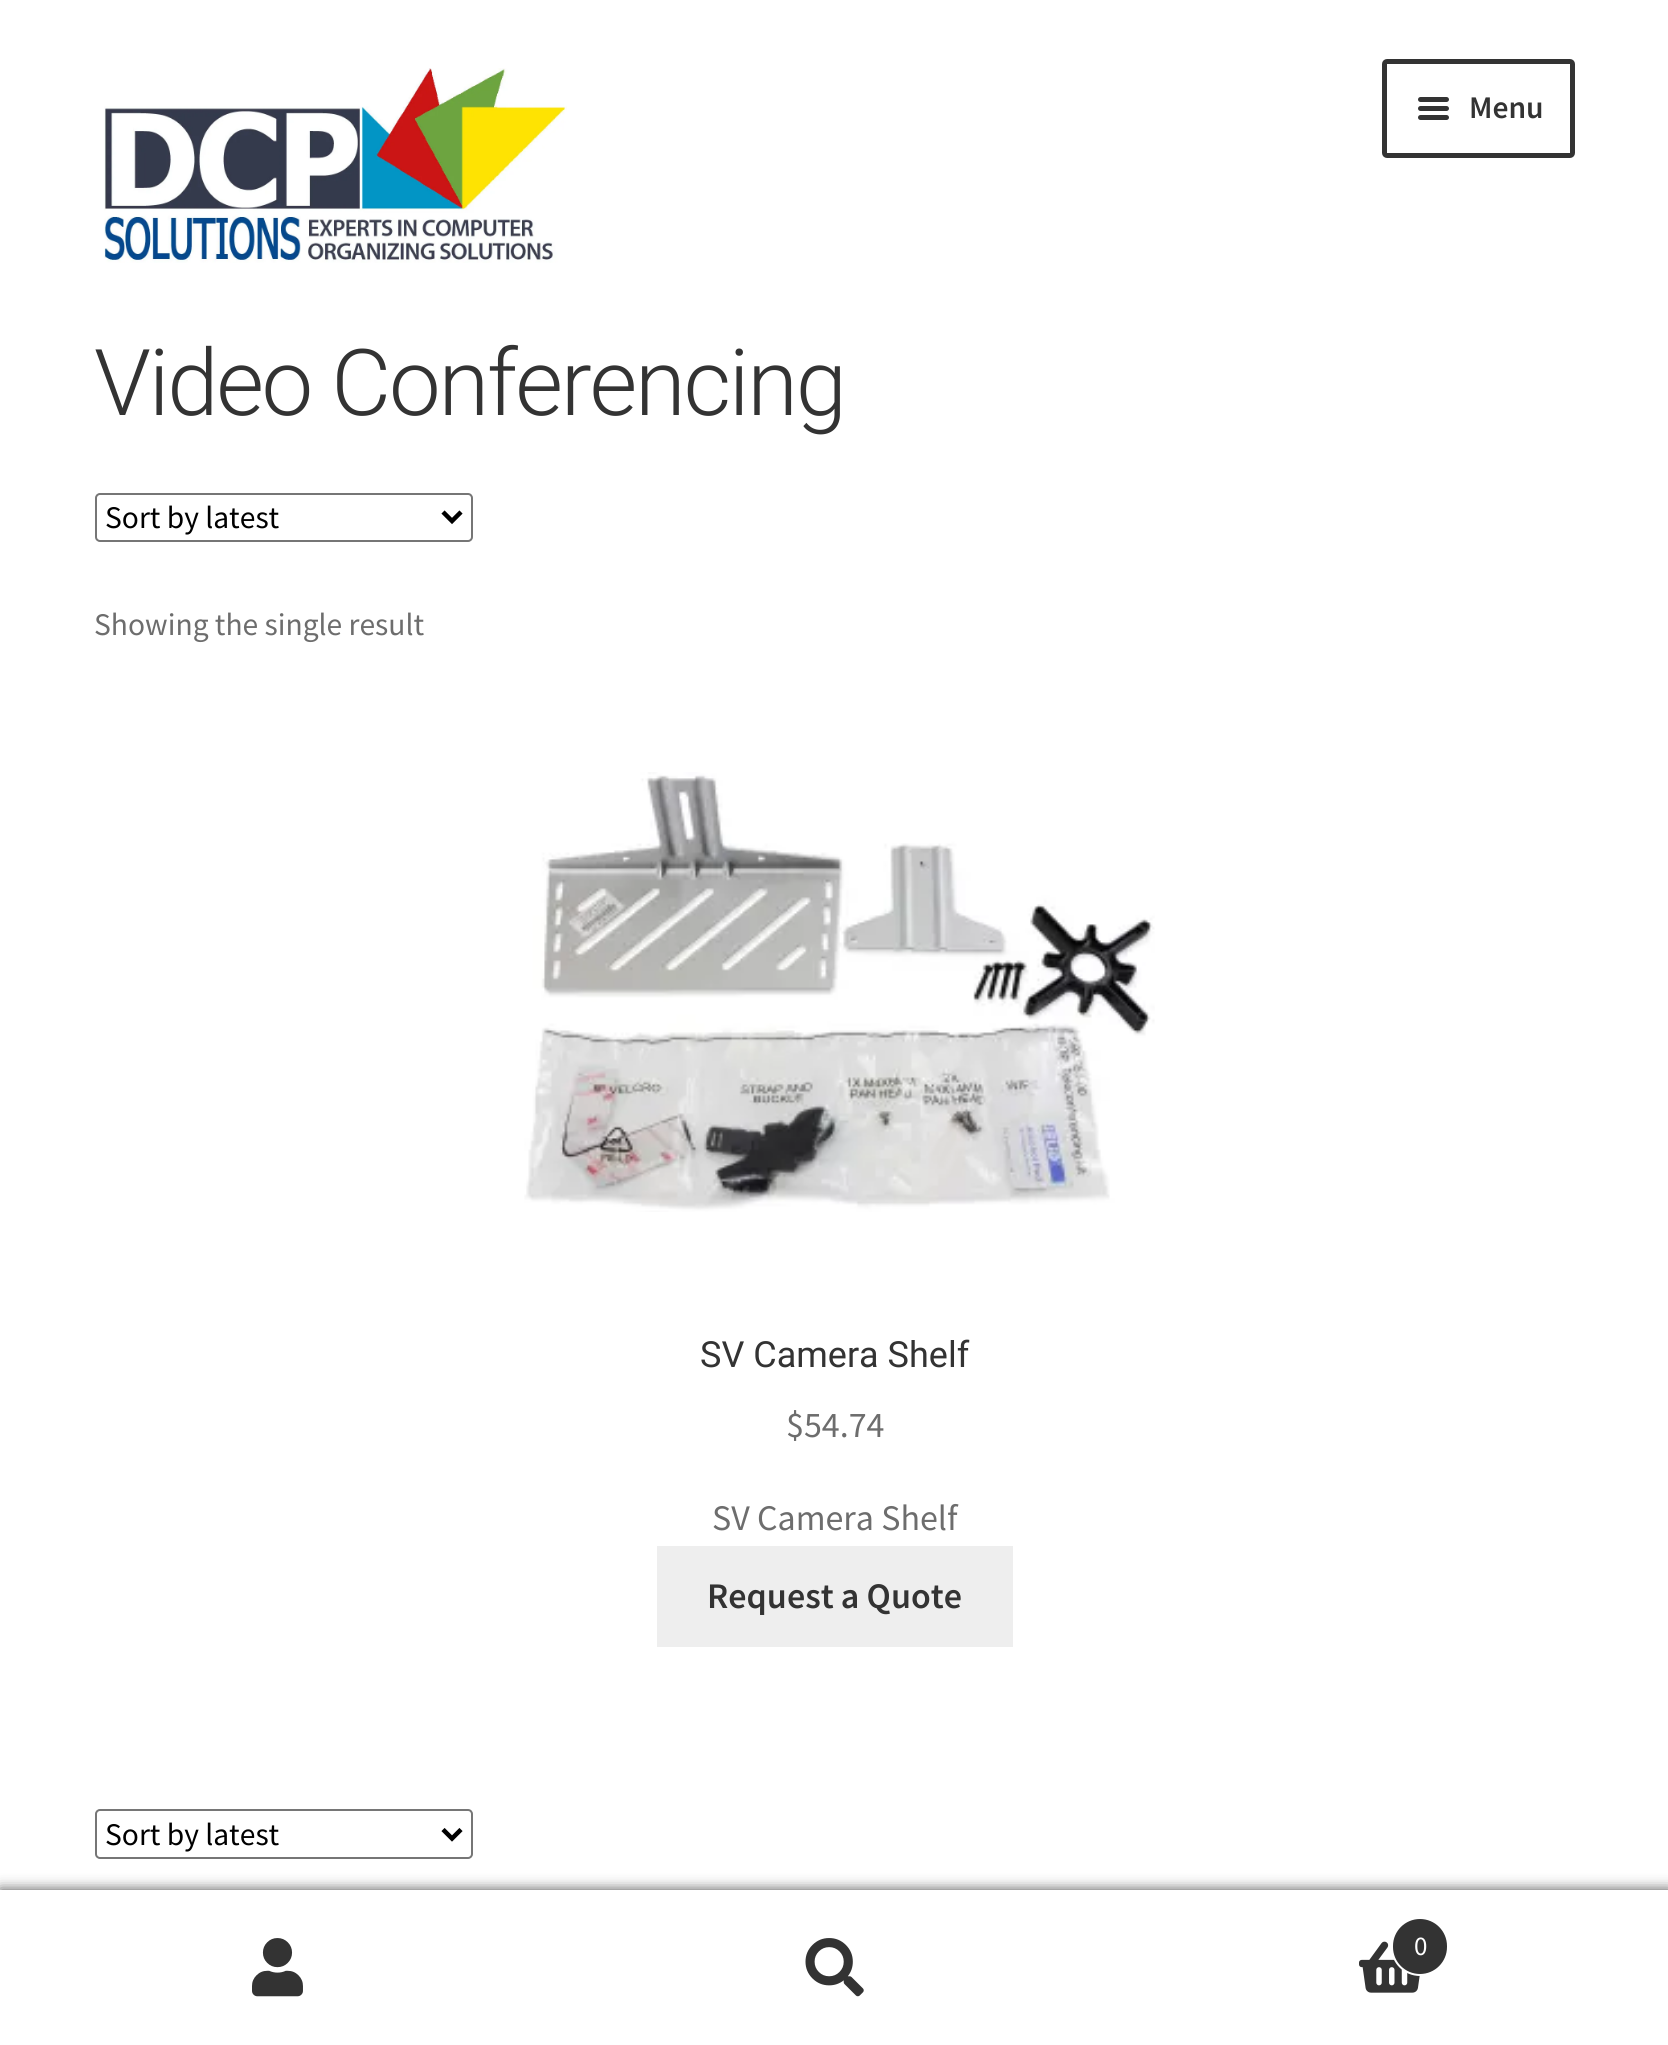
#include <cairo.h>
#include <math.h>
#include <stddef.h>


static void rgb(cairo_t *cr, int r, int g, int b)
{
	cairo_set_source_rgb(cr, r / 255.0, g / 255.0, b / 255.0);
}

static void face(cairo_t *cr, const char *family, double size, int italic, int bold)
{
	cairo_select_font_face(cr, family, italic ? CAIRO_FONT_SLANT_ITALIC : CAIRO_FONT_SLANT_NORMAL,
		bold ? CAIRO_FONT_WEIGHT_BOLD : CAIRO_FONT_WEIGHT_NORMAL);
	cairo_set_font_size(cr, size);
}

static void label(cairo_t *cr, double x, double y, const char *s)
{
	cairo_move_to(cr, x, y);
	cairo_show_text(cr, s);
}

static void tracked(cairo_t *cr, double x, double y, const char *s, double letter, double word)
{
	cairo_move_to(cr, x, y);
	while (*s) {
		char ch[5] = {0};
		int n = 0;
		do ch[n++] = *s++; while ((*s & 0xC0) == 0x80);
		cairo_show_text(cr, ch);
		cairo_rel_move_to(cr, letter + word * (*ch == ' '), 0);
	}
}

static void rect(cairo_t *cr, double x, double y, double w, double h)
{
	cairo_rectangle(cr, x, y, w, h);
	cairo_fill(cr);
}

static void rrect(cairo_t *cr, double x, double y, double w, double h, double r)
{
	cairo_new_sub_path(cr);
	cairo_arc(cr, x + w - r, y + h - r, r, 0, M_PI / 2);
	cairo_arc(cr, x + r, y + h - r, r, M_PI / 2, M_PI);
	cairo_arc(cr, x + r, y + r, r, M_PI, 1.5 * M_PI);
	cairo_arc(cr, x + w - r, y + r, r, 1.5 * M_PI, 2 * M_PI);
	cairo_close_path(cr);
}

static void soft_shadow(cairo_t *cr, double x, double y, double w, double h, double r, double blur, double alpha)
{
	cairo_push_group_with_content(cr, CAIRO_CONTENT_ALPHA);
	cairo_set_operator(cr, CAIRO_OPERATOR_SOURCE);
	for (int i = 15; i >= -15 && fmin(w, h) + blur * i / 3 > 0; i -= 2) {
		double e = blur * i / 6;
		cairo_set_source_rgba(cr, 0, 0, 0, alpha * erfc((i - 1) / 8.5) / 2);
		rrect(cr, x - e, y - e, w + 2 * e, h + 2 * e, fmax(0, fmin(r + e + blur * .6, fmin(w, h) / 2 + e)));
		cairo_fill(cr);
	}
	cairo_pattern_t *soft = cairo_pop_group(cr);
	cairo_mask(cr, soft);
	cairo_pattern_destroy(soft);
}

static void image(cairo_t *cr, const char *path, double x, double y, double w, double h)
{
	cairo_surface_t *image = cairo_image_surface_create_from_png(path);
	cairo_save(cr);
	cairo_set_source_surface(cr, image, x, y);
	cairo_rectangle(cr, x, y, w, h);
	cairo_fill(cr);
	cairo_restore(cr);
	cairo_surface_destroy(image);
}

static void draw(cairo_t *cr) {
	rgb(cr, 255, 255, 255);
	cairo_paint(cr);
	image(cr, "image0.png", 104, 68, 463, 195);
	rrect(cr, 1384.5, 61.5, 188, 94, 2.5);
	rgb(cr, 51, 51, 51);
	cairo_set_line_width(cr, 5);
	cairo_stroke(cr);
	rrect(cr, 1418, 97, 31, 5, 2.5);
	cairo_fill(cr);
	rrect(cr, 1418, 106, 31, 5, 2.5);
	cairo_fill(cr);
	face(cr, "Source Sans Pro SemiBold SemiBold", 31.5, 0, 0);
	label(cr, 1469, 118, "Menu");
	rrect(cr, 1418, 115, 31, 5, 2.5);
	cairo_fill(cr);
	face(cr, "Roboto Light", 92.25, 0, 0);
	tracked(cr, 94, 415, "Video Conferencing", -2.25, 0);
	rrect(cr, 96, 494, 376, 47, 4);
	rgb(cr, 118, 118, 118);
	cairo_set_line_width(cr, 2);
	cairo_stroke(cr);
	cairo_new_path(cr);
	cairo_move_to(cr, 443, 512);
	cairo_line_to(cr, 452, 521);
	cairo_line_to(cr, 461, 512);
	rgb(cr, 0, 0, 0);
	cairo_set_line_width(cr, 4.5);
	cairo_stroke(cr);
	face(cr, "Source Sans Pro", 31.5, 0, 0);
	label(cr, 105, 528, "Sort by latest");
	rgb(cr, 109, 109, 109);
	label(cr, 94, 635, "Showing the single result");
	image(cr, "image1.png", 524, 772, 631, 440);
	face(cr, "Roboto", 36, 0, 0);
	rgb(cr, 51, 51, 51);
	label(cr, 700, 1367, "SV Camera Shelf");
	face(cr, "Source Sans Pro", 36, 0, 0);
	rgb(cr, 109, 109, 109);
	label(cr, 786, 1437, "$54.74");
	label(cr, 712, 1530, "SV Camera Shelf");
	rgb(cr, 238, 238, 238);
	rect(cr, 657, 1546, 356, 101);
	face(cr, "Source Sans Pro SemiBold SemiBold", 36, 0, 0);
	rgb(cr, 51, 51, 51);
	label(cr, 707, 1608, "Request a Quote");
	rrect(cr, 96, 1810, 376, 48, 4);
	rgb(cr, 118, 118, 118);
	cairo_set_line_width(cr, 2);
	cairo_stroke(cr);
	cairo_new_path(cr);
	cairo_move_to(cr, 443, 1829.5);
	cairo_line_to(cr, 452, 1838.5);
	cairo_line_to(cr, 461, 1829.5);
	rgb(cr, 0, 0, 0);
	cairo_set_line_width(cr, 4.5);
	cairo_stroke(cr);
	face(cr, "Source Sans Pro", 31.5, 0, 0);
	label(cr, 105, 1845, "Sort by latest");
	rgb(cr, 0, 0, 0);
	soft_shadow(cr, 0, 1890, 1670, 155, 0, 7, 0.7);
	rgb(cr, 255, 255, 255);
	rect(cr, 0, 1890, 1668, 2);
	rect(cr, 0, 1892, 1668, 153);
	image(cr, "image2.png", 252, 1938, 51, 59);
	image(cr, "image3.png", 805, 1938, 59, 59);
	image(cr, "image4.png", 1359, 1941, 61, 52);
	rgb(cr, 51, 51, 51);
	rrect(cr, 1392, 1918, 56, 57, 28);
	cairo_fill_preserve(cr);
	rgb(cr, 255, 255, 255);
	cairo_set_line_width(cr, 2);
	cairo_stroke(cr);
	face(cr, "Source Sans Pro", 27, 0, 0);
	label(cr, 1414, 1955, "0");
}

int main(void) {
	cairo_surface_t *surface = cairo_image_surface_create(CAIRO_FORMAT_RGB24, 1668, 2045);
	cairo_t *cr = cairo_create(surface);
	cairo_font_options_t *options = cairo_font_options_create();
	cairo_font_options_set_hint_metrics(options, CAIRO_HINT_METRICS_OFF);
	cairo_font_options_set_hint_style(options, CAIRO_HINT_STYLE_NONE);
	cairo_set_font_options(cr, options);
	cairo_set_miter_limit(cr, 4);
	draw(cr);
	cairo_surface_write_to_png(surface, "render.png");
	cairo_font_options_destroy(options);
	cairo_destroy(cr);
	cairo_surface_destroy(surface);
	return 0;
}
